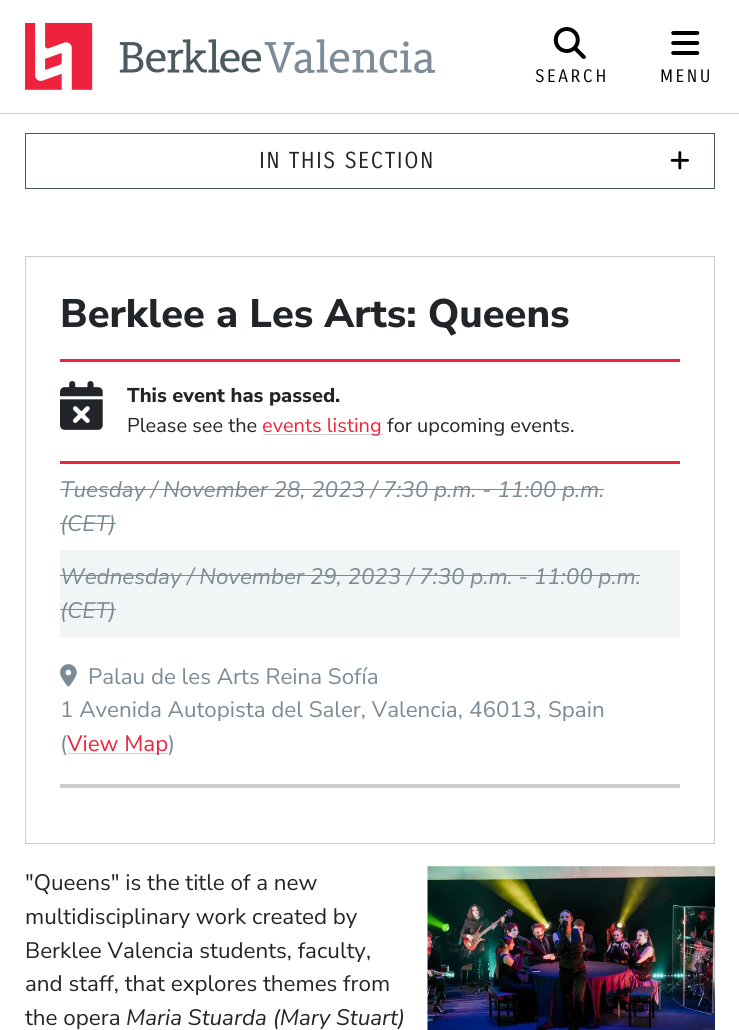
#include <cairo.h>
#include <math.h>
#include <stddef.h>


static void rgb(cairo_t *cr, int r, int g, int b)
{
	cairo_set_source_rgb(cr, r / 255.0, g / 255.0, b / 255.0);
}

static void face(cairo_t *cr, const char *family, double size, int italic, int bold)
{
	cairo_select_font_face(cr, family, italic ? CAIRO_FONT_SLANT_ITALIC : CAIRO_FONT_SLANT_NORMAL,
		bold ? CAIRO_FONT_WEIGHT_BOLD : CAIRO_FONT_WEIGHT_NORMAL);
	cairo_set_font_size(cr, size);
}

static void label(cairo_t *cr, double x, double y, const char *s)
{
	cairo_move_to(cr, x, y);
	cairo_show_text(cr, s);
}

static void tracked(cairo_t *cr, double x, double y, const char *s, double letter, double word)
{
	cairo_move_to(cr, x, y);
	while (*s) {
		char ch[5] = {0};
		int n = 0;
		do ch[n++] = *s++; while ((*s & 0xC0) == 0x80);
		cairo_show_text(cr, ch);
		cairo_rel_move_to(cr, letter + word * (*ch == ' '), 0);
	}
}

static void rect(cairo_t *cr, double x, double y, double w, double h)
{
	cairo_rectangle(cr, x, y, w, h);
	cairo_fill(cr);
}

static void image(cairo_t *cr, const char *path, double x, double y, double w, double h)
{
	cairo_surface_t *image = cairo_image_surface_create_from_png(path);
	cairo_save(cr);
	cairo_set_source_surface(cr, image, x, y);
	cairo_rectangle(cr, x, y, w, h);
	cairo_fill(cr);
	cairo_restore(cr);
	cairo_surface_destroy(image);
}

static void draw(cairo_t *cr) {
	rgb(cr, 255, 255, 255);
	cairo_paint(cr);
	rgb(cr, 204, 204, 204);
	rect(cr, 0, 113, 739, 1);
	image(cr, "image0.png", 25, 23, 410, 67);
	image(cr, "image1.png", 553, 27, 33, 32);
	face(cr, "Carrois Gothic", 17.5, 0, 0);
	rgb(cr, 0, 0, 0);
	tracked(cr, 535, 82, "SEARCH", 2.5, 0);
	image(cr, "image2.png", 671, 31, 29, 24);
	tracked(cr, 660, 82, "MENU", 2.5, 0);
	cairo_rectangle(cr, 25.5, 133.5, 689, 55);
	rgb(cr, 76, 89, 96);
	cairo_set_line_width(cr, 1);
	cairo_stroke(cr);
	face(cr, "Carrois Gothic", 22.4, 0, 0);
	rgb(cr, 33, 37, 41);
	tracked(cr, 259, 168, "IN THIS SECTION", 1.25, 0);
	image(cr, "image3.png", 670, 151, 19, 19);
	cairo_rectangle(cr, 25.5, 256.5, 689, 587);
	rgb(cr, 204, 204, 204);
	cairo_stroke(cr);
	face(cr, "Nunito Sans ExtraLight", 39.75, 0, 0);
	rgb(cr, 33, 37, 41);
	label(cr, 60, 327, "Berklee a Les Arts: Queens");
	rgb(cr, 238, 36, 60);
	rect(cr, 60, 359, 620, 3);
	rect(cr, 60, 461, 620, 3);
	image(cr, "image4.png", 60, 381, 43, 49);
	face(cr, "Nunito Sans ExtraLight", 20, 0, 0);
	rgb(cr, 33, 37, 41);
	label(cr, 127, 402, "This event has passed.");
	face(cr, "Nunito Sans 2 ExtraLight", 20, 0, 0);
	label(cr, 127, 432, "Please see the");
	rgb(cr, 204, 204, 204);
	rect(cr, 263, 434, 120, 1);
	rgb(cr, 238, 36, 60);
	label(cr, 262, 432, "events listing");
	rgb(cr, 33, 37, 41);
	label(cr, 387, 432, "for upcoming events.");
	face(cr, "Nunito Sans ExtraLight", 22.4, 1, 0);
	rgb(cr, 123, 139, 150);
	label(cr, 60, 497, "Tuesday / November 28, 2023 / 7:30 p.m.");
	rect(cr, 60, 489, 438, 1);
	label(cr, 482, 497, "- 11:00 p.m.");
	rect(cr, 498, 489, 106, 1);
	label(cr, 60, 531, "(CET)");
	rect(cr, 60, 523, 56, 1);
	rgb(cr, 241, 245, 246);
	rect(cr, 60, 550, 620, 88);
	rgb(cr, 123, 139, 150);
	label(cr, 60, 584, "Wednesday / November 29, 2023 / 7:30 p.m. - 11:00 p.m.");
	rect(cr, 60, 575, 580, 1);
	label(cr, 60, 618, "(CET)");
	rect(cr, 60, 609, 56, 1);
	image(cr, "image5.png", 60, 664, 17, 23);
	face(cr, "Nunito Sans 2 ExtraLight", 22.4, 0, 0);
	label(cr, 88, 684, "Palau de les Arts Reina Sofía");
	label(cr, 60, 717, "1 Avenida Autopista del Saler, Valencia,");
	label(cr, 469, 717, "46013,");
	label(cr, 548, 717, "Spain");
	label(cr, 60, 751, "(");
	rgb(cr, 204, 204, 204);
	rect(cr, 68, 753, 100, 1);
	rgb(cr, 238, 36, 60);
	label(cr, 67, 751, "View Map");
	rgb(cr, 123, 139, 150);
	label(cr, 168, 751, ")");
	rgb(cr, 204, 204, 204);
	rect(cr, 60, 784, 620, 4);
	rgb(cr, 33, 37, 41);
	label(cr, 25, 890, "\"Queens\" is the title of a new");
	label(cr, 25, 924, "multidisciplinary work created by");
	label(cr, 25, 958, "Berklee Valencia students, faculty,");
	label(cr, 25, 991, "and staff, that explores themes from");
	label(cr, 25, 1025, "the opera");
	face(cr, "Nunito Sans ExtraLight", 22.4, 1, 0);
	label(cr, 126, 1025, "Maria Stuarda (Mary Stuart)");
	image(cr, "image6.png", 427, 866, 288, 164);
}

int main(void) {
	cairo_surface_t *surface = cairo_image_surface_create(CAIRO_FORMAT_RGB24, 739, 1030);
	cairo_t *cr = cairo_create(surface);
	cairo_font_options_t *options = cairo_font_options_create();
	cairo_font_options_set_hint_metrics(options, CAIRO_HINT_METRICS_OFF);
	cairo_font_options_set_hint_style(options, CAIRO_HINT_STYLE_NONE);
	cairo_set_font_options(cr, options);
	cairo_set_miter_limit(cr, 4);
	draw(cr);
	cairo_surface_write_to_png(surface, "render.png");
	cairo_font_options_destroy(options);
	cairo_destroy(cr);
	cairo_surface_destroy(surface);
	return 0;
}
